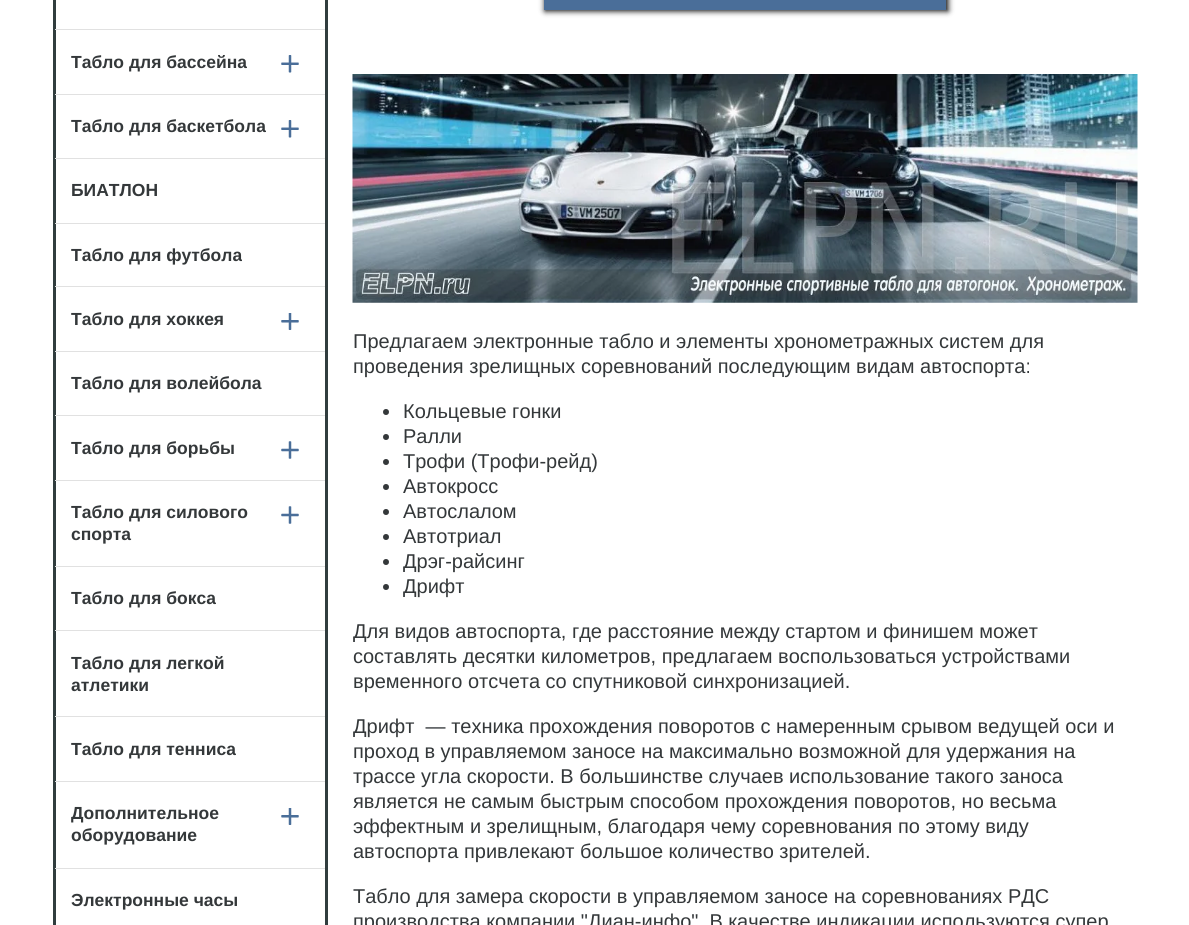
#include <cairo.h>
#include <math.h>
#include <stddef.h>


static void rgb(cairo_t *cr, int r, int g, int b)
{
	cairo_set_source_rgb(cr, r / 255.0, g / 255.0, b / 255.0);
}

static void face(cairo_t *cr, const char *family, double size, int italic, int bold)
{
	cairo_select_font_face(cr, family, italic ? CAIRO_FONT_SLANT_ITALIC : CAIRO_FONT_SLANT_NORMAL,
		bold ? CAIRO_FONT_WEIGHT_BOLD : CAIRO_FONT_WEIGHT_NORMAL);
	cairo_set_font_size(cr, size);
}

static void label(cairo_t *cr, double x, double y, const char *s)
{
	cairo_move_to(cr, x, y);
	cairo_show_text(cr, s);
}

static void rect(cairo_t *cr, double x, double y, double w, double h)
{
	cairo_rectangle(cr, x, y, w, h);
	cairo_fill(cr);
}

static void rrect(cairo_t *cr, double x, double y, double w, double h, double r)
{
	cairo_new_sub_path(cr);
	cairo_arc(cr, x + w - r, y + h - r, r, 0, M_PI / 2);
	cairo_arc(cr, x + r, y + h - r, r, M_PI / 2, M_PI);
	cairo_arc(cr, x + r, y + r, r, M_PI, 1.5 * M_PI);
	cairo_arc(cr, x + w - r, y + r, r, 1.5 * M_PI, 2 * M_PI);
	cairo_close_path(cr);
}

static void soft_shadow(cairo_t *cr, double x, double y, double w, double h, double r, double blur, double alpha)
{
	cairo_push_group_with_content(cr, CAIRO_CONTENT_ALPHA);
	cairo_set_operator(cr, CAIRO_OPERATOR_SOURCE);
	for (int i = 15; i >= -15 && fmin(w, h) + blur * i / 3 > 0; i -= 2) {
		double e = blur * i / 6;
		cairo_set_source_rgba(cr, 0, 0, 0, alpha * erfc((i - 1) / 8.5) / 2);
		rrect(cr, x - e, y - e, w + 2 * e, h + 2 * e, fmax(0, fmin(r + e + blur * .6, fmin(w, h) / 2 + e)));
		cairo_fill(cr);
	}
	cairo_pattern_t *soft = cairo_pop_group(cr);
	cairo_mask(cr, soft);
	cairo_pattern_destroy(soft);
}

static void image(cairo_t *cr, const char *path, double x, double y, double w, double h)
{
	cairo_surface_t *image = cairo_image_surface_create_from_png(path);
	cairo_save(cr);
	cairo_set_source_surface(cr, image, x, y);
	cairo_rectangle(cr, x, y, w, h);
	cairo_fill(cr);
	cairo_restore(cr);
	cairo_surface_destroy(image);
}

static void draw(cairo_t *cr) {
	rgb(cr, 255, 255, 255);
	cairo_paint(cr);
	cairo_rectangle(cr, 54.5, -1.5, 272, 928);
	rgb(cr, 49, 61, 62);
	cairo_set_line_width(cr, 3);
	cairo_stroke(cr);
	rgb(cr, 225, 225, 225);
	rect(cr, 55, 29, 270, 1);
	face(cr, "Liberation Sans", 17.5, 0, 1);
	rgb(cr, 52, 56, 58);
	label(cr, 71, 68, "Табло для бассейна");
	image(cr, "image0.png", 281, 55, 18, 18);
	rgb(cr, 225, 225, 225);
	rect(cr, 55, 94, 270, 1);
	rgb(cr, 52, 56, 58);
	label(cr, 71, 132, "Табло для баскетбола");
	image(cr, "image0.png", 281, 120, 18, 18);
	rgb(cr, 225, 225, 225);
	rect(cr, 55, 158, 270, 1);
	rgb(cr, 52, 56, 58);
	label(cr, 71, 196, "БИАТЛОН");
	rgb(cr, 225, 225, 225);
	rect(cr, 55, 223, 270, 1);
	rgb(cr, 52, 56, 58);
	label(cr, 71, 261, "Табло для футбола");
	rgb(cr, 225, 225, 225);
	rect(cr, 55, 286, 270, 1);
	rgb(cr, 52, 56, 58);
	label(cr, 71, 325, "Табло для хоккея");
	image(cr, "image1.png", 281, 313, 18, 17);
	rgb(cr, 225, 225, 225);
	rect(cr, 55, 351, 270, 1);
	rgb(cr, 52, 56, 58);
	label(cr, 71, 389, "Табло для волейбола");
	rgb(cr, 225, 225, 225);
	rect(cr, 55, 415, 270, 1);
	rgb(cr, 52, 56, 58);
	label(cr, 71, 454, "Табло для борьбы");
	image(cr, "image2.png", 281, 441, 18, 18);
	rgb(cr, 225, 225, 225);
	rect(cr, 55, 480, 270, 1);
	rgb(cr, 52, 56, 58);
	label(cr, 71, 518, "Табло для силового");
	label(cr, 71, 540, "спорта");
	image(cr, "image2.png", 281, 506, 18, 18);
	rgb(cr, 225, 225, 225);
	rect(cr, 55, 566, 270, 1);
	rgb(cr, 52, 56, 58);
	label(cr, 71, 604, "Табло для бокса");
	rgb(cr, 225, 225, 225);
	rect(cr, 55, 630, 270, 1);
	rgb(cr, 52, 56, 58);
	label(cr, 71, 669, "Табло для легкой");
	label(cr, 71, 691, "атлетики");
	rgb(cr, 225, 225, 225);
	rect(cr, 55, 716, 270, 1);
	rgb(cr, 52, 56, 58);
	label(cr, 71, 755, "Табло для тенниса");
	rgb(cr, 225, 225, 225);
	rect(cr, 55, 781, 270, 1);
	rgb(cr, 52, 56, 58);
	label(cr, 71, 819, "Дополнительное");
	label(cr, 71, 841, "оборудование");
	image(cr, "image1.png", 281, 808, 18, 17);
	rgb(cr, 225, 225, 225);
	rect(cr, 55, 868, 270, 1);
	rgb(cr, 52, 56, 58);
	label(cr, 71, 906, "Электронные часы");
	rgb(cr, 0, 0, 0);
	soft_shadow(cr, 545, -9, 403, 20, 0, 3, 1);
	rgb(cr, 74, 110, 153);
	rect(cr, 544, 0, 402, 10);
	image(cr, "image3.png", 352, 74, 786, 229);
	face(cr, "Liberation Sans", 20, 0, 0);
	rgb(cr, 52, 56, 58);
	label(cr, 353, 348, "Предлагаем электронные табло и элементы хронометражных систем для");
	label(cr, 353, 373, "проведения зрелищных соревнований последующим видам автоспорта:");
	cairo_new_path(cr);
	cairo_arc(cr, 386, 412, 3, 0, 2 * M_PI);
	cairo_fill(cr);
	label(cr, 403, 418, "Кольцевые гонки");
	cairo_new_path(cr);
	cairo_arc(cr, 386, 437, 3, 0, 2 * M_PI);
	cairo_fill(cr);
	label(cr, 403, 443, "Ралли");
	cairo_new_path(cr);
	cairo_arc(cr, 386, 462, 3, 0, 2 * M_PI);
	cairo_fill(cr);
	label(cr, 403, 468, "Трофи (Трофи-рейд)");
	cairo_new_path(cr);
	cairo_arc(cr, 386, 487, 3, 0, 2 * M_PI);
	cairo_fill(cr);
	label(cr, 403, 493, "Автокросс");
	cairo_new_path(cr);
	cairo_arc(cr, 386, 512, 3, 0, 2 * M_PI);
	cairo_fill(cr);
	label(cr, 403, 518, "Автослалом");
	cairo_new_path(cr);
	cairo_arc(cr, 386, 537, 3, 0, 2 * M_PI);
	cairo_fill(cr);
	label(cr, 403, 543, "Автотриал");
	cairo_new_path(cr);
	cairo_arc(cr, 386, 562, 3, 0, 2 * M_PI);
	cairo_fill(cr);
	label(cr, 403, 568, "Дрэг-райсинг");
	cairo_new_path(cr);
	cairo_arc(cr, 386, 587, 3, 0, 2 * M_PI);
	cairo_fill(cr);
	label(cr, 403, 593, "Дрифт");
	label(cr, 353, 638, "Для видов автоспорта, где расстояние между стартом и финишем может");
	label(cr, 353, 663, "составлять десятки километров, предлагаем воспользоваться устройствами");
	label(cr, 353, 688, "временного отсчета со спутниковой синхронизацией.");
	label(cr, 353, 733, "Дрифт  — техника прохождения поворотов с намеренным срывом ведущей оси и");
	label(cr, 353, 758, "проход в управляемом заносе на максимально возможной для удержания на");
	label(cr, 353, 783, "трассе угла скорости. В большинстве случаев использование такого заноса");
	label(cr, 353, 808, "является не самым быстрым способом прохождения поворотов, но весьма");
	label(cr, 353, 833, "эффектным и зрелищным, благодаря чему соревнования по этому виду");
	label(cr, 353, 858, "автоспорта привлекают большое количество зрителей.");
	label(cr, 353, 903, "Табло для замера скорости в управляемом заносе на соревнованиях РДС");
	label(cr, 353, 928, "производства компании \"Диан-инфо\". В качестве индикации используются супер");
}

int main(void) {
	cairo_surface_t *surface = cairo_image_surface_create(CAIRO_FORMAT_RGB24, 1189, 925);
	cairo_t *cr = cairo_create(surface);
	cairo_font_options_t *options = cairo_font_options_create();
	cairo_font_options_set_hint_metrics(options, CAIRO_HINT_METRICS_OFF);
	cairo_font_options_set_hint_style(options, CAIRO_HINT_STYLE_NONE);
	cairo_set_font_options(cr, options);
	cairo_set_miter_limit(cr, 4);
	draw(cr);
	cairo_surface_write_to_png(surface, "render.png");
	cairo_font_options_destroy(options);
	cairo_destroy(cr);
	cairo_surface_destroy(surface);
	return 0;
}
